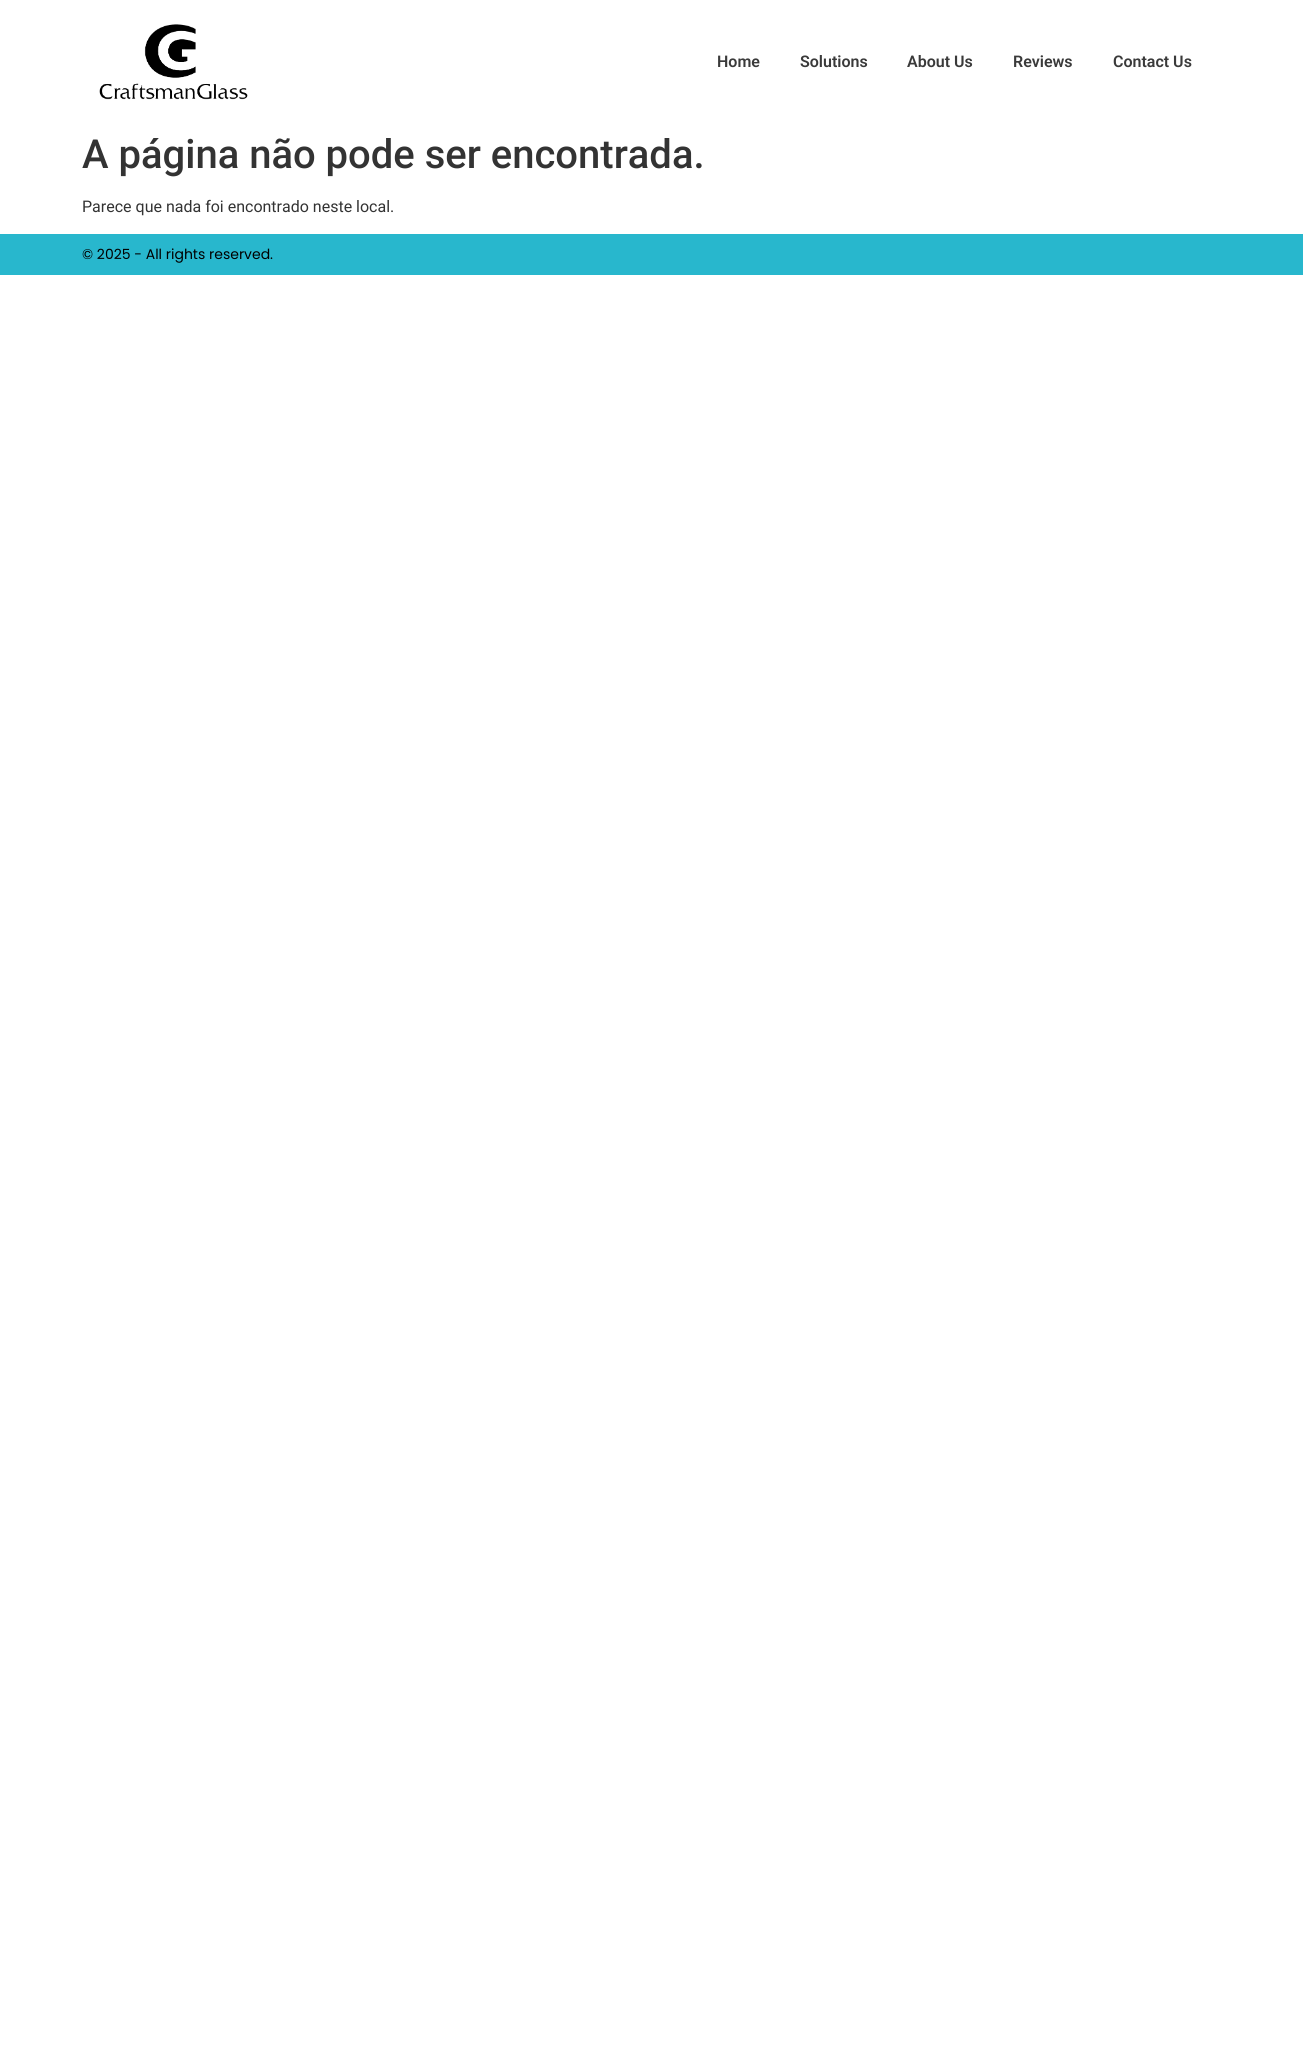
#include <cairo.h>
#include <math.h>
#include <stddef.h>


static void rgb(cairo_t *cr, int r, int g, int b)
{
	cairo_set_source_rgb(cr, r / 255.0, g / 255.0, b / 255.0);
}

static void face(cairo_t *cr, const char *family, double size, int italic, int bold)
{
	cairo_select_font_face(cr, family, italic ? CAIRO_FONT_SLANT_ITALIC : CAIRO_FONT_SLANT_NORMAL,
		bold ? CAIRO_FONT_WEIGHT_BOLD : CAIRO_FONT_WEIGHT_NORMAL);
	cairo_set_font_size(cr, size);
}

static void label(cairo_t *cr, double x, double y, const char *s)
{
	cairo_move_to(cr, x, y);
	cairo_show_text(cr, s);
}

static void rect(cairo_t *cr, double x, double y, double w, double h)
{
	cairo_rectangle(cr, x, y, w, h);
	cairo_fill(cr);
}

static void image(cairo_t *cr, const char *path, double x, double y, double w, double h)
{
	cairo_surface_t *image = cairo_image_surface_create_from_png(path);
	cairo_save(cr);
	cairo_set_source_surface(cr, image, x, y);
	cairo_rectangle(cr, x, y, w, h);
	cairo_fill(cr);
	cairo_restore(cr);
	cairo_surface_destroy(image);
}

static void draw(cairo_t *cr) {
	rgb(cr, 255, 255, 255);
	cairo_paint(cr);
	image(cr, "image0.png", 99, 24, 149, 76);
	face(cr, "Roboto SemiBold", 16, 0, 0);
	rgb(cr, 58, 58, 58);
	label(cr, 717, 67, "Home");
	label(cr, 800, 67, "Solutions");
	label(cr, 907, 67, "About Us");
	label(cr, 1013, 67, "Reviews");
	label(cr, 1113, 67, "Contact Us");
	face(cr, "Roboto Medium", 40, 0, 0);
	rgb(cr, 51, 51, 51);
	label(cr, 82, 168, "A página não pode ser encontrada.");
	face(cr, "Roboto", 16, 0, 0);
	label(cr, 82, 212, "Parece que nada foi encontrado neste local.");
	rgb(cr, 40, 183, 205);
	rect(cr, 0, 234, 1303, 41);
	face(cr, "Poppins", 14, 0, 0);
	rgb(cr, 0, 0, 0);
	label(cr, 82, 259, "© 2025 - All rights reserved.");
}

int main(void) {
	cairo_surface_t *surface = cairo_image_surface_create(CAIRO_FORMAT_RGB24, 1303, 2066);
	cairo_t *cr = cairo_create(surface);
	cairo_font_options_t *options = cairo_font_options_create();
	cairo_font_options_set_hint_metrics(options, CAIRO_HINT_METRICS_OFF);
	cairo_font_options_set_hint_style(options, CAIRO_HINT_STYLE_NONE);
	cairo_set_font_options(cr, options);
	cairo_set_miter_limit(cr, 4);
	draw(cr);
	cairo_surface_write_to_png(surface, "render.png");
	cairo_font_options_destroy(options);
	cairo_destroy(cr);
	cairo_surface_destroy(surface);
	return 0;
}
